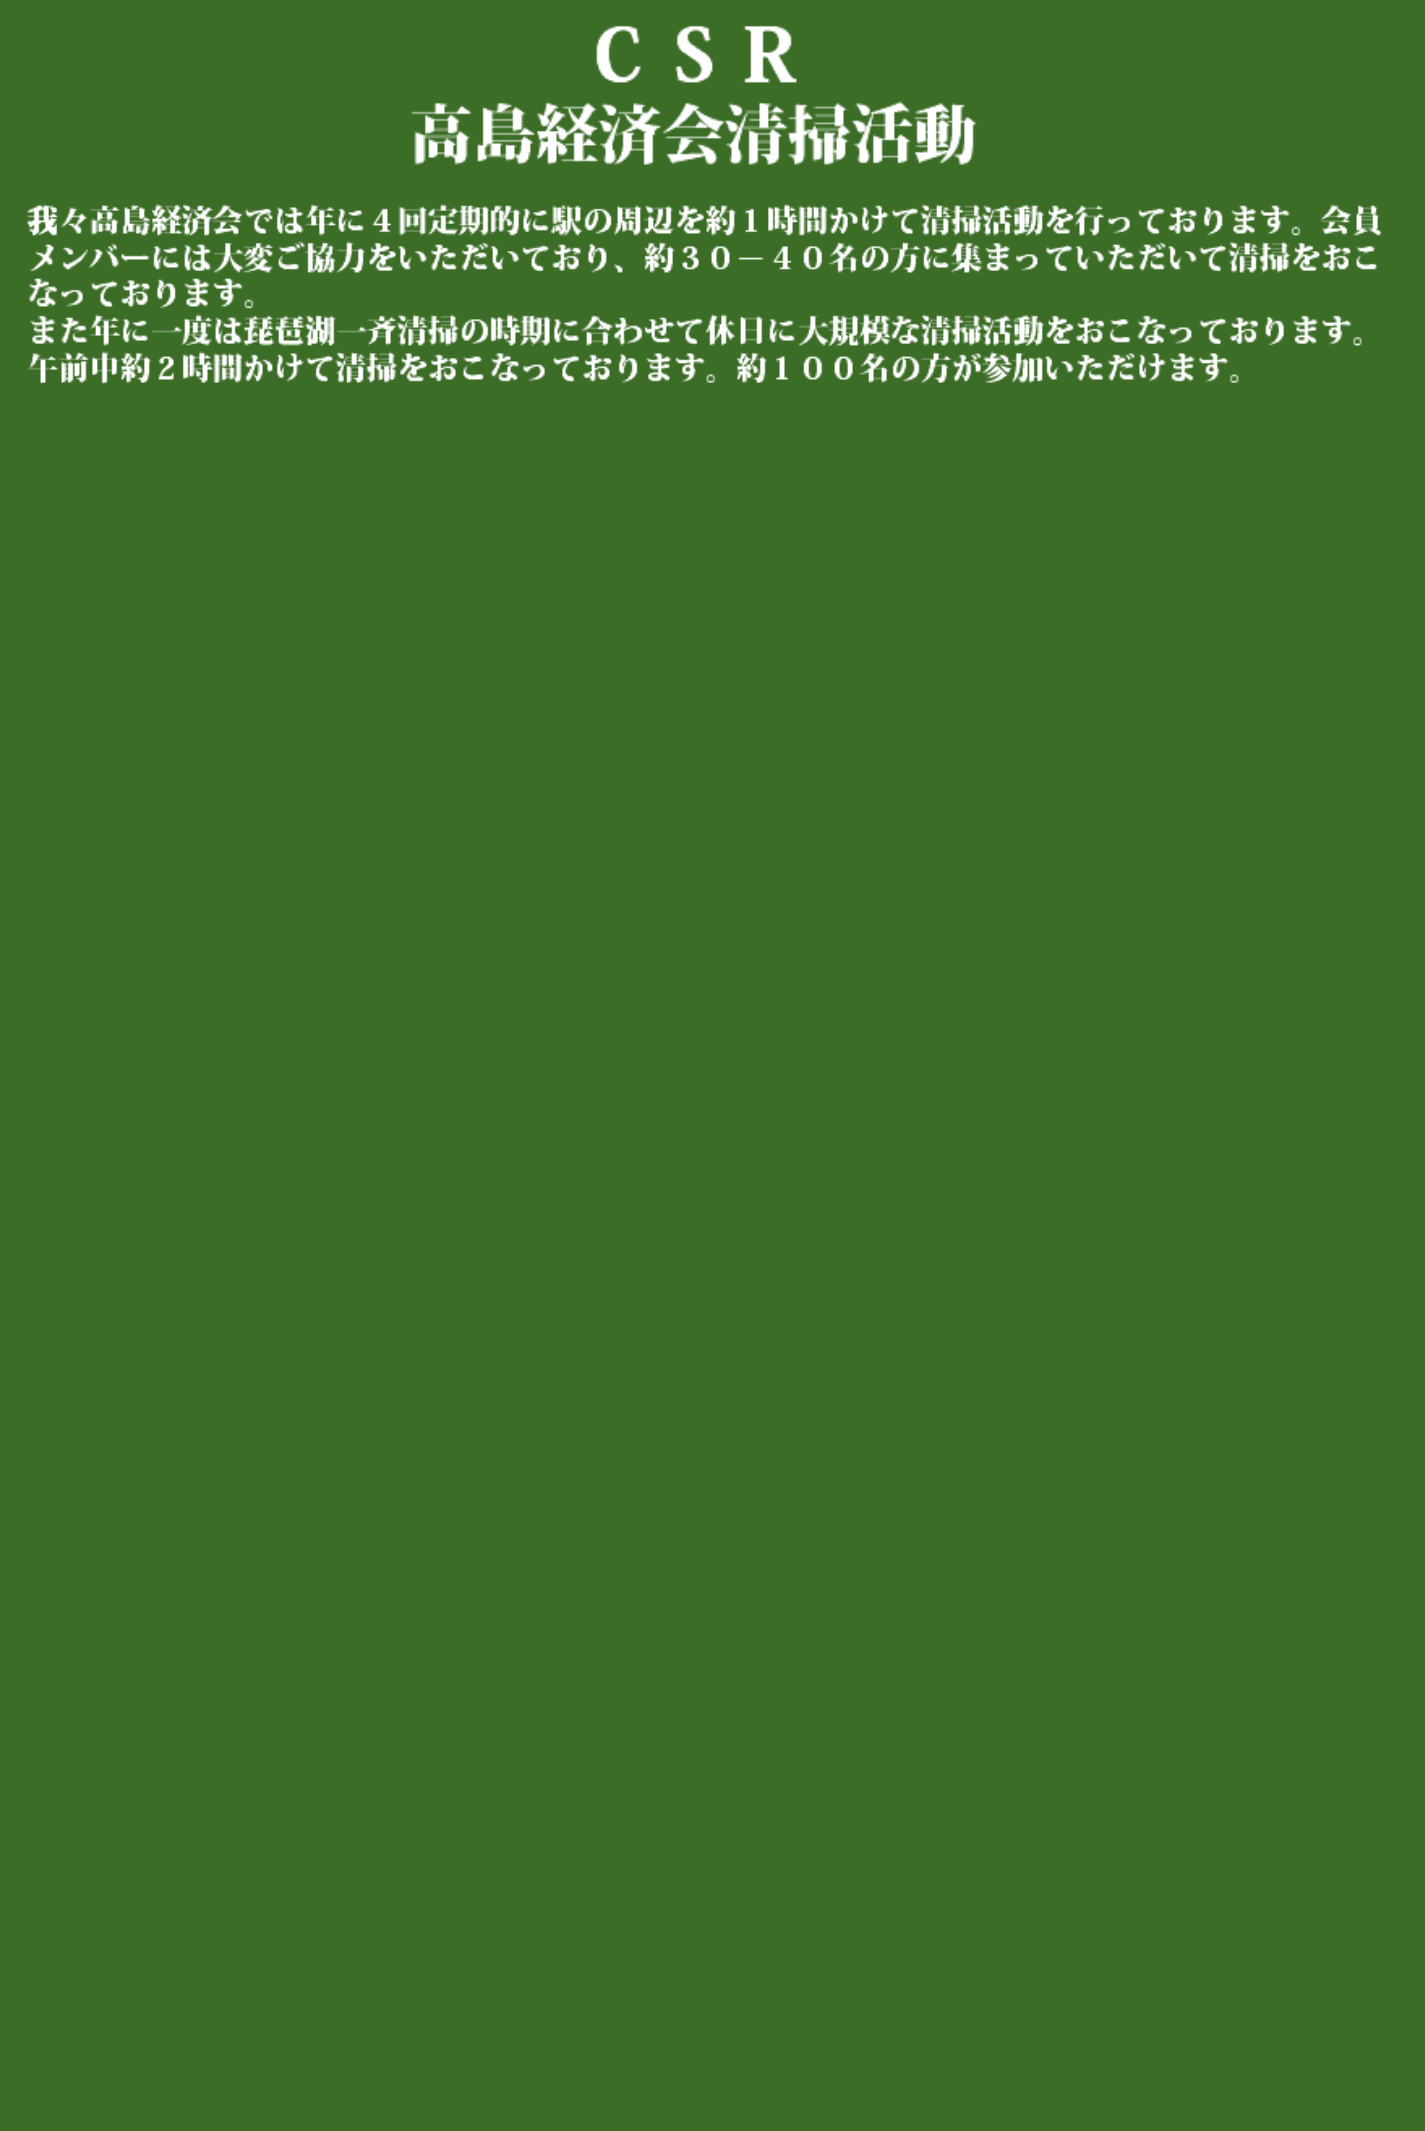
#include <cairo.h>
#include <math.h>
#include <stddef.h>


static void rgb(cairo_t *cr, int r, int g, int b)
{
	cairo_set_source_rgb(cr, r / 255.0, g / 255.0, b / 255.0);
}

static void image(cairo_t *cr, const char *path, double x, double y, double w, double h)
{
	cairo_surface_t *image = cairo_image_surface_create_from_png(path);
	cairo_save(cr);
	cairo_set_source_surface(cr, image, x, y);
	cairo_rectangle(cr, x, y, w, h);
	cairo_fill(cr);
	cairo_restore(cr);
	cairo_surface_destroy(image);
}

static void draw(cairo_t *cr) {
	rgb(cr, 60, 109, 39);
	cairo_paint(cr);
	image(cr, "image0.png", 411, 25, 566, 140);
	image(cr, "image1.png", 27, 204, 1355, 181);
}

int main(void) {
	cairo_surface_t *surface = cairo_image_surface_create(CAIRO_FORMAT_RGB24, 1425, 2131);
	cairo_t *cr = cairo_create(surface);
	cairo_font_options_t *options = cairo_font_options_create();
	cairo_font_options_set_hint_metrics(options, CAIRO_HINT_METRICS_OFF);
	cairo_font_options_set_hint_style(options, CAIRO_HINT_STYLE_NONE);
	cairo_set_font_options(cr, options);
	cairo_set_miter_limit(cr, 4);
	draw(cr);
	cairo_surface_write_to_png(surface, "render.png");
	cairo_font_options_destroy(options);
	cairo_destroy(cr);
	cairo_surface_destroy(surface);
	return 0;
}
